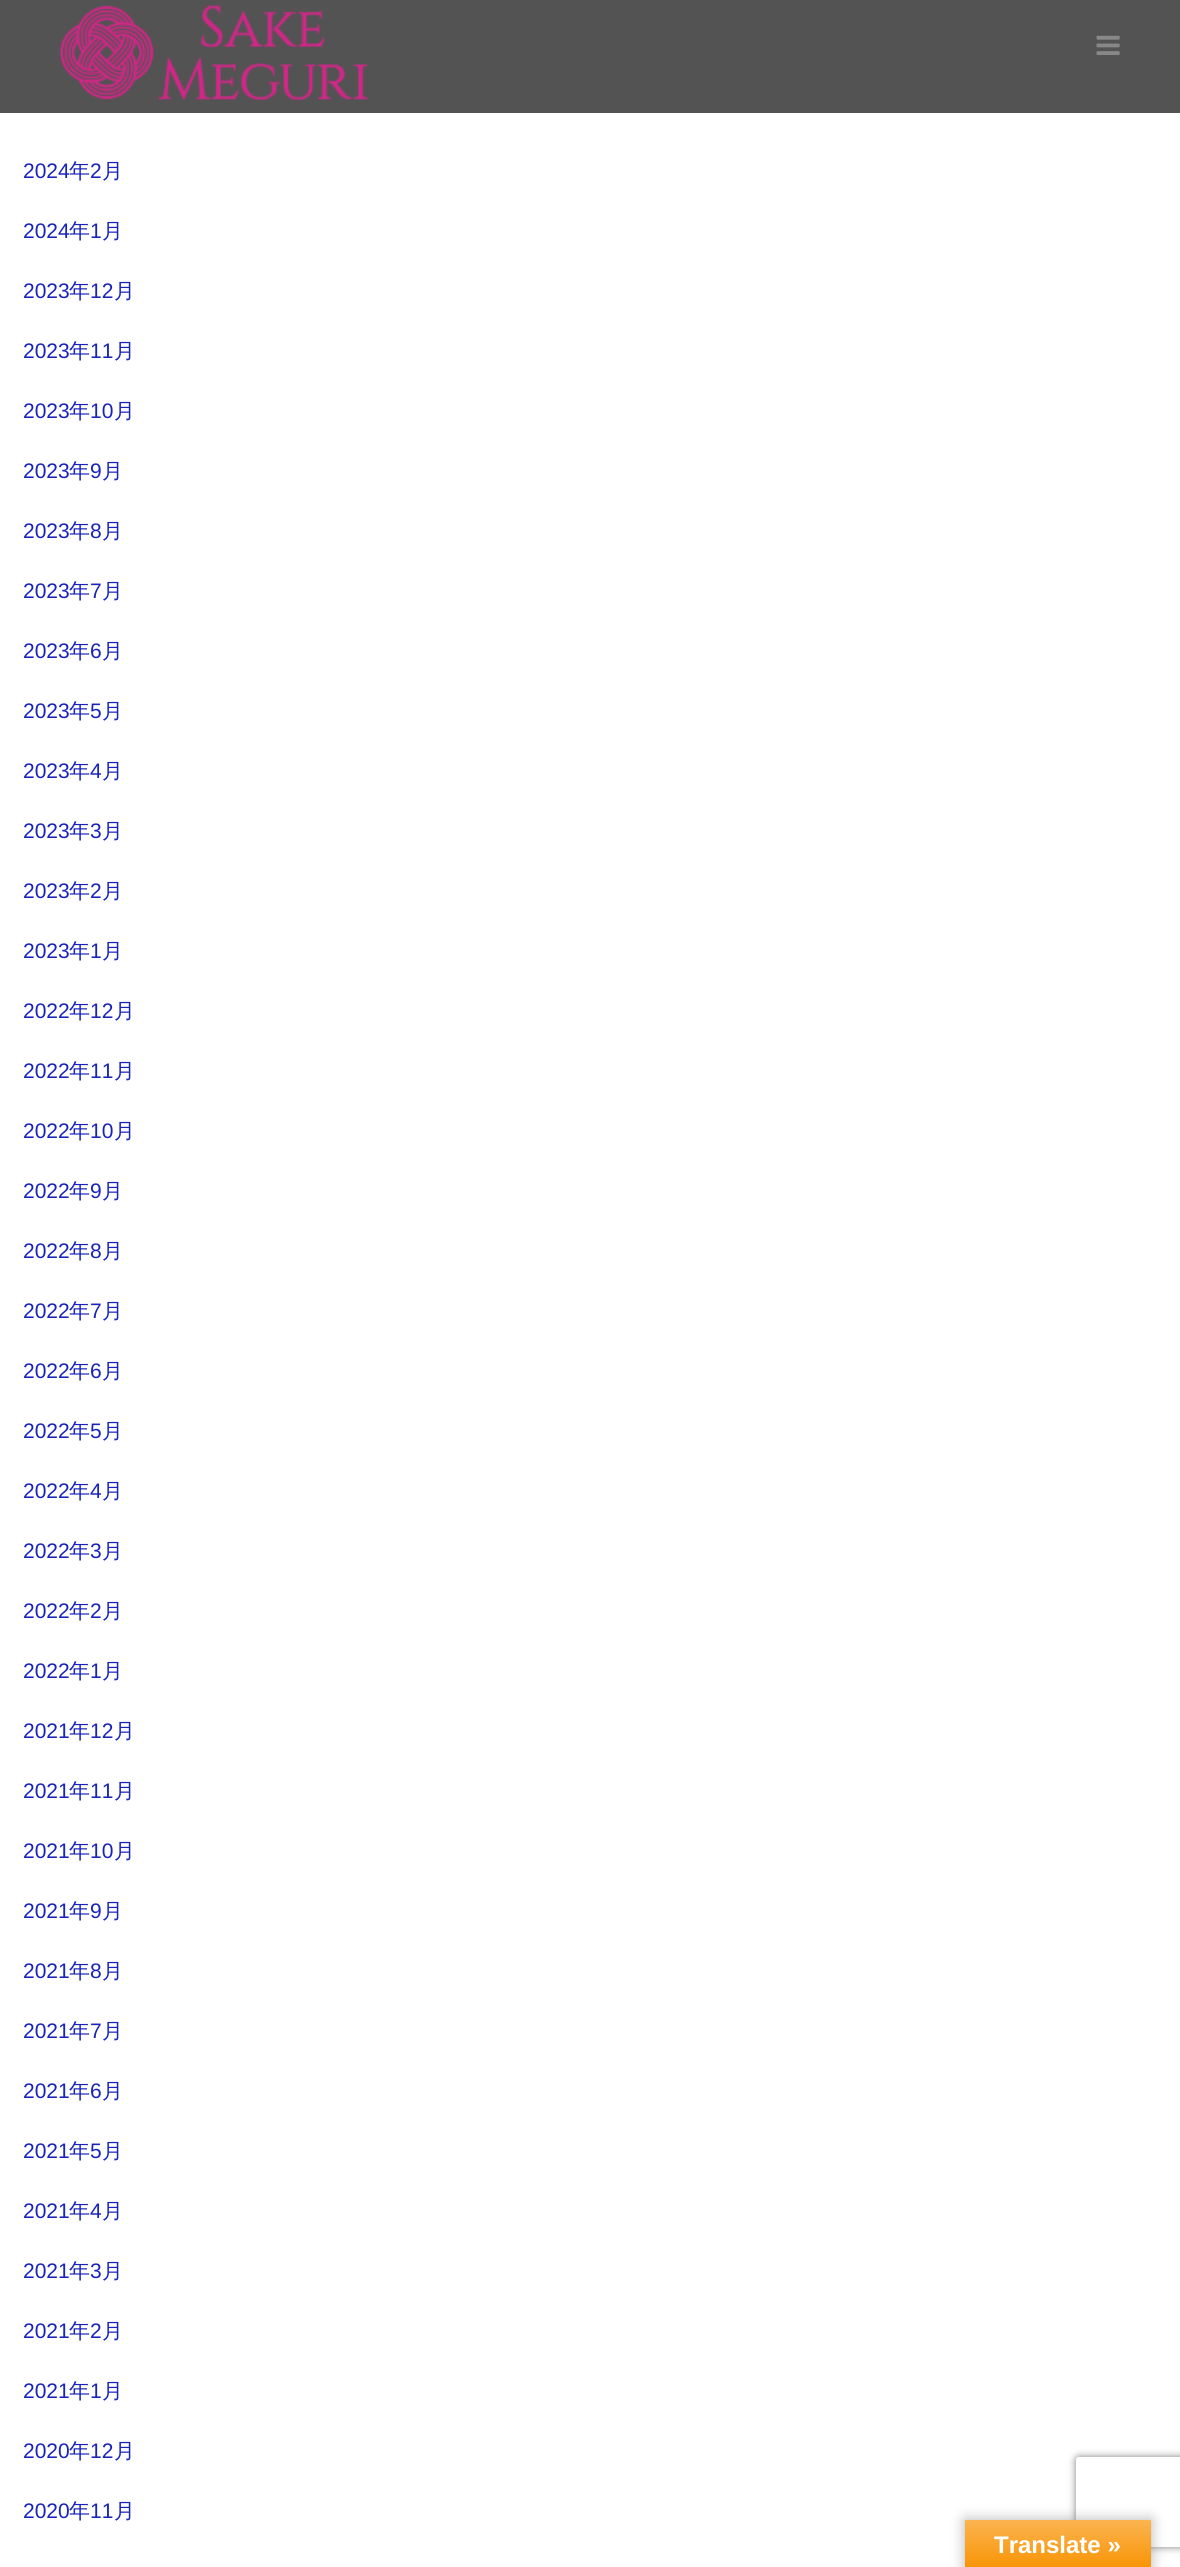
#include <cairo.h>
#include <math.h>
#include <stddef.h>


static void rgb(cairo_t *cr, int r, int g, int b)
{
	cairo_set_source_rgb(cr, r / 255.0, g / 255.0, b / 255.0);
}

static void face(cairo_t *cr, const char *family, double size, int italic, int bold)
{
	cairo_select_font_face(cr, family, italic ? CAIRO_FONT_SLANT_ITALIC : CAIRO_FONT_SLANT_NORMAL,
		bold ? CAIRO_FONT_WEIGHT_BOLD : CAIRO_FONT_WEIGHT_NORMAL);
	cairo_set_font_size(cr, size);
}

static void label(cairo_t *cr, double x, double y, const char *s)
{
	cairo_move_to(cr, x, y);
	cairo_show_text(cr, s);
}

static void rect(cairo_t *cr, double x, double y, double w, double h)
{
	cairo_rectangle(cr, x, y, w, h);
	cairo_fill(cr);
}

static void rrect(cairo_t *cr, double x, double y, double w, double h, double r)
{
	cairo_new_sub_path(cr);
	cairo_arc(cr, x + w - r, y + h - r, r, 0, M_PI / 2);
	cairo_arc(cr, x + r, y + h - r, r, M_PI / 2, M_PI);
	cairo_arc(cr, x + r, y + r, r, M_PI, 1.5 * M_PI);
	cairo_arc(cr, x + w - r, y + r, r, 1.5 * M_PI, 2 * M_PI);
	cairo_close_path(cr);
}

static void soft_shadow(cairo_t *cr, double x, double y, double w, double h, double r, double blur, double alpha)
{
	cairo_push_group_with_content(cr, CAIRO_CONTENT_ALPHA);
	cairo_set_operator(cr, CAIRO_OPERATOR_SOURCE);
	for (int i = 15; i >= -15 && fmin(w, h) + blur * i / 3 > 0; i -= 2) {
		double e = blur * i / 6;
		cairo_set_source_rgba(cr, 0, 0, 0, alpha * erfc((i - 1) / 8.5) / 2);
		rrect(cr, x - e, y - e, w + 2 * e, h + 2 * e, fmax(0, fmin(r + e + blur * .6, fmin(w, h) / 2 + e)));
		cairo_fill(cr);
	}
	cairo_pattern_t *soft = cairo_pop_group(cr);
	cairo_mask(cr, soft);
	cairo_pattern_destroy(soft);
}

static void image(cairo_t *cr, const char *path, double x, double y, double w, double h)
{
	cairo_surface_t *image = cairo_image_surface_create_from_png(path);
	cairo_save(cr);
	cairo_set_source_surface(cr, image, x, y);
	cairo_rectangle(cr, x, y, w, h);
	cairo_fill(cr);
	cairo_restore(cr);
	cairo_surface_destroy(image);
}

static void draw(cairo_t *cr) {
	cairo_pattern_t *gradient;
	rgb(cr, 255, 255, 255);
	cairo_paint(cr);
	cairo_set_source_rgba(cr, 0.157, 0.157, 0.157, 0.8);
	rect(cr, 0, 0, 1180, 113);
	image(cr, "image0.png", 59, 4, 309, 97);
	image(cr, "image1.png", 1096, 35, 24, 20);
	face(cr, "Liberation Sans", 21, 0, 0);
	rgb(cr, 24, 35, 186);
	label(cr, 23, 178, "2024");
	face(cr, "WenQuanYi Zen Hei Medium", 21, 0, 0);
	label(cr, 69, 178, "年");
	face(cr, "Liberation Sans", 21, 0, 0);
	label(cr, 90, 178, "2");
	face(cr, "WenQuanYi Zen Hei Medium", 21, 0, 0);
	label(cr, 102, 178, "月");
	face(cr, "Liberation Sans", 21, 0, 0);
	label(cr, 23, 238, "2024");
	face(cr, "WenQuanYi Zen Hei Medium", 21, 0, 0);
	label(cr, 69, 238, "年");
	face(cr, "Liberation Sans", 21, 0, 0);
	label(cr, 90, 238, "1");
	face(cr, "WenQuanYi Zen Hei Medium", 21, 0, 0);
	label(cr, 102, 238, "月");
	face(cr, "Liberation Sans", 21, 0, 0);
	label(cr, 23, 298, "2023");
	face(cr, "WenQuanYi Zen Hei Medium", 21, 0, 0);
	label(cr, 69, 298, "年");
	face(cr, "Liberation Sans", 21, 0, 0);
	label(cr, 90, 298, "12");
	face(cr, "WenQuanYi Zen Hei Medium", 21, 0, 0);
	label(cr, 114, 298, "月");
	face(cr, "Liberation Sans", 21, 0, 0);
	label(cr, 23, 358, "2023");
	face(cr, "WenQuanYi Zen Hei Medium", 21, 0, 0);
	label(cr, 69, 358, "年");
	face(cr, "Liberation Sans", 21, 0, 0);
	label(cr, 90, 358, "11");
	face(cr, "WenQuanYi Zen Hei Medium", 21, 0, 0);
	label(cr, 114, 358, "月");
	face(cr, "Liberation Sans", 21, 0, 0);
	label(cr, 23, 418, "2023");
	face(cr, "WenQuanYi Zen Hei Medium", 21, 0, 0);
	label(cr, 69, 418, "年");
	face(cr, "Liberation Sans", 21, 0, 0);
	label(cr, 90, 418, "10");
	face(cr, "WenQuanYi Zen Hei Medium", 21, 0, 0);
	label(cr, 114, 418, "月");
	face(cr, "Liberation Sans", 21, 0, 0);
	label(cr, 23, 478, "2023");
	face(cr, "WenQuanYi Zen Hei Medium", 21, 0, 0);
	label(cr, 69, 478, "年");
	face(cr, "Liberation Sans", 21, 0, 0);
	label(cr, 90, 478, "9");
	face(cr, "WenQuanYi Zen Hei Medium", 21, 0, 0);
	label(cr, 102, 478, "月");
	face(cr, "Liberation Sans", 21, 0, 0);
	label(cr, 23, 538, "2023");
	face(cr, "WenQuanYi Zen Hei Medium", 21, 0, 0);
	label(cr, 69, 538, "年");
	face(cr, "Liberation Sans", 21, 0, 0);
	label(cr, 90, 538, "8");
	face(cr, "WenQuanYi Zen Hei Medium", 21, 0, 0);
	label(cr, 102, 538, "月");
	face(cr, "Liberation Sans", 21, 0, 0);
	label(cr, 23, 598, "2023");
	face(cr, "WenQuanYi Zen Hei Medium", 21, 0, 0);
	label(cr, 69, 598, "年");
	face(cr, "Liberation Sans", 21, 0, 0);
	label(cr, 90, 598, "7");
	face(cr, "WenQuanYi Zen Hei Medium", 21, 0, 0);
	label(cr, 102, 598, "月");
	face(cr, "Liberation Sans", 21, 0, 0);
	label(cr, 23, 658, "2023");
	face(cr, "WenQuanYi Zen Hei Medium", 21, 0, 0);
	label(cr, 69, 658, "年");
	face(cr, "Liberation Sans", 21, 0, 0);
	label(cr, 90, 658, "6");
	face(cr, "WenQuanYi Zen Hei Medium", 21, 0, 0);
	label(cr, 102, 658, "月");
	face(cr, "Liberation Sans", 21, 0, 0);
	label(cr, 23, 718, "2023");
	face(cr, "WenQuanYi Zen Hei Medium", 21, 0, 0);
	label(cr, 69, 718, "年");
	face(cr, "Liberation Sans", 21, 0, 0);
	label(cr, 90, 718, "5");
	face(cr, "WenQuanYi Zen Hei Medium", 21, 0, 0);
	label(cr, 102, 718, "月");
	face(cr, "Liberation Sans", 21, 0, 0);
	label(cr, 23, 778, "2023");
	face(cr, "WenQuanYi Zen Hei Medium", 21, 0, 0);
	label(cr, 69, 778, "年");
	face(cr, "Liberation Sans", 21, 0, 0);
	label(cr, 90, 778, "4");
	face(cr, "WenQuanYi Zen Hei Medium", 21, 0, 0);
	label(cr, 102, 778, "月");
	face(cr, "Liberation Sans", 21, 0, 0);
	label(cr, 23, 838, "2023");
	face(cr, "WenQuanYi Zen Hei Medium", 21, 0, 0);
	label(cr, 69, 838, "年");
	face(cr, "Liberation Sans", 21, 0, 0);
	label(cr, 90, 838, "3");
	face(cr, "WenQuanYi Zen Hei Medium", 21, 0, 0);
	label(cr, 102, 838, "月");
	face(cr, "Liberation Sans", 21, 0, 0);
	label(cr, 23, 898, "2023");
	face(cr, "WenQuanYi Zen Hei Medium", 21, 0, 0);
	label(cr, 69, 898, "年");
	face(cr, "Liberation Sans", 21, 0, 0);
	label(cr, 90, 898, "2");
	face(cr, "WenQuanYi Zen Hei Medium", 21, 0, 0);
	label(cr, 102, 898, "月");
	face(cr, "Liberation Sans", 21, 0, 0);
	label(cr, 23, 958, "2023");
	face(cr, "WenQuanYi Zen Hei Medium", 21, 0, 0);
	label(cr, 69, 958, "年");
	face(cr, "Liberation Sans", 21, 0, 0);
	label(cr, 90, 958, "1");
	face(cr, "WenQuanYi Zen Hei Medium", 21, 0, 0);
	label(cr, 102, 958, "月");
	face(cr, "Liberation Sans", 21, 0, 0);
	label(cr, 23, 1018, "2022");
	face(cr, "WenQuanYi Zen Hei Medium", 21, 0, 0);
	label(cr, 69, 1018, "年");
	face(cr, "Liberation Sans", 21, 0, 0);
	label(cr, 90, 1018, "12");
	face(cr, "WenQuanYi Zen Hei Medium", 21, 0, 0);
	label(cr, 114, 1018, "月");
	face(cr, "Liberation Sans", 21, 0, 0);
	label(cr, 23, 1078, "2022");
	face(cr, "WenQuanYi Zen Hei Medium", 21, 0, 0);
	label(cr, 69, 1078, "年");
	face(cr, "Liberation Sans", 21, 0, 0);
	label(cr, 90, 1078, "11");
	face(cr, "WenQuanYi Zen Hei Medium", 21, 0, 0);
	label(cr, 114, 1078, "月");
	face(cr, "Liberation Sans", 21, 0, 0);
	label(cr, 23, 1138, "2022");
	face(cr, "WenQuanYi Zen Hei Medium", 21, 0, 0);
	label(cr, 69, 1138, "年");
	face(cr, "Liberation Sans", 21, 0, 0);
	label(cr, 90, 1138, "10");
	face(cr, "WenQuanYi Zen Hei Medium", 21, 0, 0);
	label(cr, 114, 1138, "月");
	face(cr, "Liberation Sans", 21, 0, 0);
	label(cr, 23, 1198, "2022");
	face(cr, "WenQuanYi Zen Hei Medium", 21, 0, 0);
	label(cr, 69, 1198, "年");
	face(cr, "Liberation Sans", 21, 0, 0);
	label(cr, 90, 1198, "9");
	face(cr, "WenQuanYi Zen Hei Medium", 21, 0, 0);
	label(cr, 102, 1198, "月");
	face(cr, "Liberation Sans", 21, 0, 0);
	label(cr, 23, 1258, "2022");
	face(cr, "WenQuanYi Zen Hei Medium", 21, 0, 0);
	label(cr, 69, 1258, "年");
	face(cr, "Liberation Sans", 21, 0, 0);
	label(cr, 90, 1258, "8");
	face(cr, "WenQuanYi Zen Hei Medium", 21, 0, 0);
	label(cr, 102, 1258, "月");
	face(cr, "Liberation Sans", 21, 0, 0);
	label(cr, 23, 1318, "2022");
	face(cr, "WenQuanYi Zen Hei Medium", 21, 0, 0);
	label(cr, 69, 1318, "年");
	face(cr, "Liberation Sans", 21, 0, 0);
	label(cr, 90, 1318, "7");
	face(cr, "WenQuanYi Zen Hei Medium", 21, 0, 0);
	label(cr, 102, 1318, "月");
	face(cr, "Liberation Sans", 21, 0, 0);
	label(cr, 23, 1378, "2022");
	face(cr, "WenQuanYi Zen Hei Medium", 21, 0, 0);
	label(cr, 69, 1378, "年");
	face(cr, "Liberation Sans", 21, 0, 0);
	label(cr, 90, 1378, "6");
	face(cr, "WenQuanYi Zen Hei Medium", 21, 0, 0);
	label(cr, 102, 1378, "月");
	face(cr, "Liberation Sans", 21, 0, 0);
	label(cr, 23, 1438, "2022");
	face(cr, "WenQuanYi Zen Hei Medium", 21, 0, 0);
	label(cr, 69, 1438, "年");
	face(cr, "Liberation Sans", 21, 0, 0);
	label(cr, 90, 1438, "5");
	face(cr, "WenQuanYi Zen Hei Medium", 21, 0, 0);
	label(cr, 102, 1438, "月");
	face(cr, "Liberation Sans", 21, 0, 0);
	label(cr, 23, 1498, "2022");
	face(cr, "WenQuanYi Zen Hei Medium", 21, 0, 0);
	label(cr, 69, 1498, "年");
	face(cr, "Liberation Sans", 21, 0, 0);
	label(cr, 90, 1498, "4");
	face(cr, "WenQuanYi Zen Hei Medium", 21, 0, 0);
	label(cr, 102, 1498, "月");
	face(cr, "Liberation Sans", 21, 0, 0);
	label(cr, 23, 1558, "2022");
	face(cr, "WenQuanYi Zen Hei Medium", 21, 0, 0);
	label(cr, 69, 1558, "年");
	face(cr, "Liberation Sans", 21, 0, 0);
	label(cr, 90, 1558, "3");
	face(cr, "WenQuanYi Zen Hei Medium", 21, 0, 0);
	label(cr, 102, 1558, "月");
	face(cr, "Liberation Sans", 21, 0, 0);
	label(cr, 23, 1618, "2022");
	face(cr, "WenQuanYi Zen Hei Medium", 21, 0, 0);
	label(cr, 69, 1618, "年");
	face(cr, "Liberation Sans", 21, 0, 0);
	label(cr, 90, 1618, "2");
	face(cr, "WenQuanYi Zen Hei Medium", 21, 0, 0);
	label(cr, 102, 1618, "月");
	face(cr, "Liberation Sans", 21, 0, 0);
	label(cr, 23, 1678, "2022");
	face(cr, "WenQuanYi Zen Hei Medium", 21, 0, 0);
	label(cr, 69, 1678, "年");
	face(cr, "Liberation Sans", 21, 0, 0);
	label(cr, 90, 1678, "1");
	face(cr, "WenQuanYi Zen Hei Medium", 21, 0, 0);
	label(cr, 102, 1678, "月");
	face(cr, "Liberation Sans", 21, 0, 0);
	label(cr, 23, 1738, "2021");
	face(cr, "WenQuanYi Zen Hei Medium", 21, 0, 0);
	label(cr, 69, 1738, "年");
	face(cr, "Liberation Sans", 21, 0, 0);
	label(cr, 90, 1738, "12");
	face(cr, "WenQuanYi Zen Hei Medium", 21, 0, 0);
	label(cr, 114, 1738, "月");
	face(cr, "Liberation Sans", 21, 0, 0);
	label(cr, 23, 1798, "2021");
	face(cr, "WenQuanYi Zen Hei Medium", 21, 0, 0);
	label(cr, 69, 1798, "年");
	face(cr, "Liberation Sans", 21, 0, 0);
	label(cr, 90, 1798, "11");
	face(cr, "WenQuanYi Zen Hei Medium", 21, 0, 0);
	label(cr, 114, 1798, "月");
	face(cr, "Liberation Sans", 21, 0, 0);
	label(cr, 23, 1858, "2021");
	face(cr, "WenQuanYi Zen Hei Medium", 21, 0, 0);
	label(cr, 69, 1858, "年");
	face(cr, "Liberation Sans", 21, 0, 0);
	label(cr, 90, 1858, "10");
	face(cr, "WenQuanYi Zen Hei Medium", 21, 0, 0);
	label(cr, 114, 1858, "月");
	face(cr, "Liberation Sans", 21, 0, 0);
	label(cr, 23, 1918, "2021");
	face(cr, "WenQuanYi Zen Hei Medium", 21, 0, 0);
	label(cr, 69, 1918, "年");
	face(cr, "Liberation Sans", 21, 0, 0);
	label(cr, 90, 1918, "9");
	face(cr, "WenQuanYi Zen Hei Medium", 21, 0, 0);
	label(cr, 102, 1918, "月");
	face(cr, "Liberation Sans", 21, 0, 0);
	label(cr, 23, 1978, "2021");
	face(cr, "WenQuanYi Zen Hei Medium", 21, 0, 0);
	label(cr, 69, 1978, "年");
	face(cr, "Liberation Sans", 21, 0, 0);
	label(cr, 90, 1978, "8");
	face(cr, "WenQuanYi Zen Hei Medium", 21, 0, 0);
	label(cr, 102, 1978, "月");
	face(cr, "Liberation Sans", 21, 0, 0);
	label(cr, 23, 2038, "2021");
	face(cr, "WenQuanYi Zen Hei Medium", 21, 0, 0);
	label(cr, 69, 2038, "年");
	face(cr, "Liberation Sans", 21, 0, 0);
	label(cr, 90, 2038, "7");
	face(cr, "WenQuanYi Zen Hei Medium", 21, 0, 0);
	label(cr, 102, 2038, "月");
	face(cr, "Liberation Sans", 21, 0, 0);
	label(cr, 23, 2098, "2021");
	face(cr, "WenQuanYi Zen Hei Medium", 21, 0, 0);
	label(cr, 69, 2098, "年");
	face(cr, "Liberation Sans", 21, 0, 0);
	label(cr, 90, 2098, "6");
	face(cr, "WenQuanYi Zen Hei Medium", 21, 0, 0);
	label(cr, 102, 2098, "月");
	face(cr, "Liberation Sans", 21, 0, 0);
	label(cr, 23, 2158, "2021");
	face(cr, "WenQuanYi Zen Hei Medium", 21, 0, 0);
	label(cr, 69, 2158, "年");
	face(cr, "Liberation Sans", 21, 0, 0);
	label(cr, 90, 2158, "5");
	face(cr, "WenQuanYi Zen Hei Medium", 21, 0, 0);
	label(cr, 102, 2158, "月");
	face(cr, "Liberation Sans", 21, 0, 0);
	label(cr, 23, 2218, "2021");
	face(cr, "WenQuanYi Zen Hei Medium", 21, 0, 0);
	label(cr, 69, 2218, "年");
	face(cr, "Liberation Sans", 21, 0, 0);
	label(cr, 90, 2218, "4");
	face(cr, "WenQuanYi Zen Hei Medium", 21, 0, 0);
	label(cr, 102, 2218, "月");
	face(cr, "Liberation Sans", 21, 0, 0);
	label(cr, 23, 2278, "2021");
	face(cr, "WenQuanYi Zen Hei Medium", 21, 0, 0);
	label(cr, 69, 2278, "年");
	face(cr, "Liberation Sans", 21, 0, 0);
	label(cr, 90, 2278, "3");
	face(cr, "WenQuanYi Zen Hei Medium", 21, 0, 0);
	label(cr, 102, 2278, "月");
	face(cr, "Liberation Sans", 21, 0, 0);
	label(cr, 23, 2338, "2021");
	face(cr, "WenQuanYi Zen Hei Medium", 21, 0, 0);
	label(cr, 69, 2338, "年");
	face(cr, "Liberation Sans", 21, 0, 0);
	label(cr, 90, 2338, "2");
	face(cr, "WenQuanYi Zen Hei Medium", 21, 0, 0);
	label(cr, 102, 2338, "月");
	face(cr, "Liberation Sans", 21, 0, 0);
	label(cr, 23, 2398, "2021");
	face(cr, "WenQuanYi Zen Hei Medium", 21, 0, 0);
	label(cr, 69, 2398, "年");
	face(cr, "Liberation Sans", 21, 0, 0);
	label(cr, 90, 2398, "1");
	face(cr, "WenQuanYi Zen Hei Medium", 21, 0, 0);
	label(cr, 102, 2398, "月");
	face(cr, "Liberation Sans", 21, 0, 0);
	label(cr, 23, 2458, "2020");
	face(cr, "WenQuanYi Zen Hei Medium", 21, 0, 0);
	label(cr, 69, 2458, "年");
	face(cr, "Liberation Sans", 21, 0, 0);
	label(cr, 90, 2458, "12");
	face(cr, "WenQuanYi Zen Hei Medium", 21, 0, 0);
	label(cr, 114, 2458, "月");
	face(cr, "Liberation Sans", 21, 0, 0);
	label(cr, 23, 2518, "2020");
	face(cr, "WenQuanYi Zen Hei Medium", 21, 0, 0);
	label(cr, 69, 2518, "年");
	face(cr, "Liberation Sans", 21, 0, 0);
	label(cr, 90, 2518, "11");
	face(cr, "WenQuanYi Zen Hei Medium", 21, 0, 0);
	label(cr, 114, 2518, "月");
	rgb(cr, 0, 0, 0);
	soft_shadow(cr, 965, 2520, 186, 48, 0, 7, 0.3);
	cairo_save(cr);
	cairo_set_fill_rule(cr, CAIRO_FILL_RULE_EVEN_ODD);
	cairo_new_path(cr);
	cairo_move_to(cr, 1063, 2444);
	cairo_line_to(cr, 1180, 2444);
	cairo_line_to(cr, 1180, 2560);
	cairo_line_to(cr, 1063, 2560);
	cairo_close_path(cr);
	cairo_move_to(cr, 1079, 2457);
	cairo_line_to(cr, 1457, 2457);
	cairo_curve_to(cr, 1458.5, 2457, 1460, 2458.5, 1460, 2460);
	cairo_line_to(cr, 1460, 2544);
	cairo_curve_to(cr, 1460, 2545.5, 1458.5, 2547, 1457, 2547);
	cairo_line_to(cr, 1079, 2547);
	cairo_curve_to(cr, 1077.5, 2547, 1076, 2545.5, 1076, 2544);
	cairo_line_to(cr, 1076, 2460);
	cairo_curve_to(cr, 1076, 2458.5, 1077.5, 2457, 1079, 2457);
	cairo_close_path(cr);
	cairo_clip(cr);
	rgb(cr, 128, 128, 128);
	soft_shadow(cr, 1076, 2457, 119, 90, 3, 4, 1);
	cairo_restore(cr);
	gradient = cairo_pattern_create_linear(1058, 2520, 1058, 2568);
	cairo_pattern_add_color_stop_rgba(gradient, 0, 0.984, 0.706, 0.314, 1);
	cairo_pattern_add_color_stop_rgba(gradient, 1, 0.973, 0.58, 0.024, 1);
	cairo_set_source(cr, gradient);
	cairo_pattern_destroy(gradient);
	rect(cr, 965, 2520, 186, 47);
	face(cr, "Liberation Sans", 24, 0, 1);
	rgb(cr, 255, 255, 255);
	label(cr, 994, 2553, "Translate »");
}

int main(void) {
	cairo_surface_t *surface = cairo_image_surface_create(CAIRO_FORMAT_RGB24, 1180, 2567);
	cairo_t *cr = cairo_create(surface);
	cairo_font_options_t *options = cairo_font_options_create();
	cairo_font_options_set_hint_metrics(options, CAIRO_HINT_METRICS_OFF);
	cairo_font_options_set_hint_style(options, CAIRO_HINT_STYLE_NONE);
	cairo_set_font_options(cr, options);
	cairo_set_miter_limit(cr, 4);
	draw(cr);
	cairo_surface_write_to_png(surface, "render.png");
	cairo_font_options_destroy(options);
	cairo_destroy(cr);
	cairo_surface_destroy(surface);
	return 0;
}
